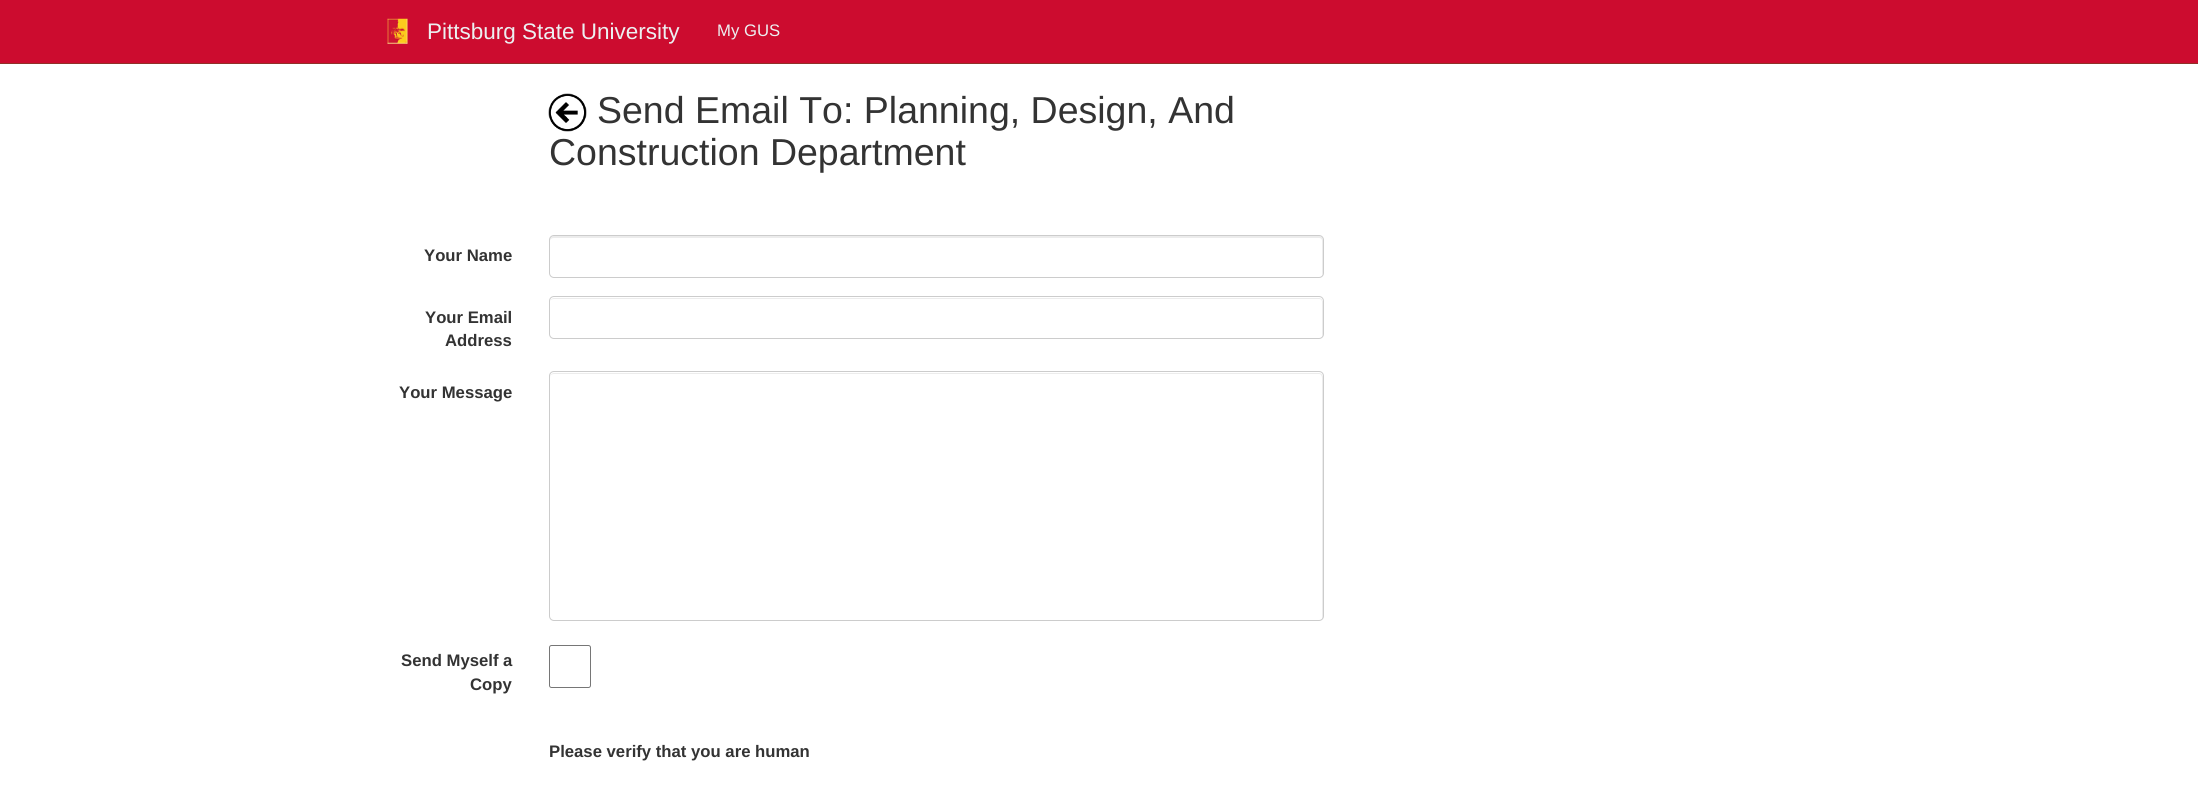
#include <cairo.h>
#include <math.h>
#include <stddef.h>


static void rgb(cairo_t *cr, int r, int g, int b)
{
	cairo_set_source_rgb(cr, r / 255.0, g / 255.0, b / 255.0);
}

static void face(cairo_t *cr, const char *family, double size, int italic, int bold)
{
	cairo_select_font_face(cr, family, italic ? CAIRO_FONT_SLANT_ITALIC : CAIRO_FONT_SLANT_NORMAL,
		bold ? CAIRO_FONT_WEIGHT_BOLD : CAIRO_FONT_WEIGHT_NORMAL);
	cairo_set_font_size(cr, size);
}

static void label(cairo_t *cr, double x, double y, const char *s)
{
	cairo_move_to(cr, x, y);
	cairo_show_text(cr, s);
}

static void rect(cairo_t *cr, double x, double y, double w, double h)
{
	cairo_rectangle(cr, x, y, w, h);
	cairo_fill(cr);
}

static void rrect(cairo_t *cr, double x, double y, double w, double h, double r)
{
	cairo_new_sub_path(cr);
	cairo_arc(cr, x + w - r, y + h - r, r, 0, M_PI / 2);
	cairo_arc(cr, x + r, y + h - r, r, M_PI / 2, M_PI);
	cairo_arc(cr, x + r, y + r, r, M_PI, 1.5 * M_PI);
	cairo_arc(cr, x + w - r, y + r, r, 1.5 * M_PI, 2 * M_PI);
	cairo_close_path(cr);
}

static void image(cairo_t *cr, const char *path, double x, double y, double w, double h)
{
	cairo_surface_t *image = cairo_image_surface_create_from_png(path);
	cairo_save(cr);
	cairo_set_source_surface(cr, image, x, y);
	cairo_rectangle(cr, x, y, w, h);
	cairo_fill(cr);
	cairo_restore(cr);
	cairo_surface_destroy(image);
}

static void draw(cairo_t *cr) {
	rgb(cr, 255, 255, 255);
	cairo_paint(cr);
	rgb(cr, 204, 12, 47);
	rect(cr, 0, 0, 2198, 63);
	rgb(cr, 143, 49, 40);
	rect(cr, 0, 63, 2198, 1);
	image(cr, "image0.png", 387, 18, 21, 26);
	face(cr, "Liberation Sans", 22.5, 0, 0);
	rgb(cr, 236, 240, 241);
	label(cr, 427, 39, "Pittsburg State University");
	face(cr, "Liberation Sans", 16.7, 0, 0);
	label(cr, 717, 36, "My GUS");
	image(cr, "image1.png", 548, 93, 39, 39);
	face(cr, "Liberation Sans", 37.5, 0, 0);
	rgb(cr, 51, 51, 51);
	label(cr, 597, 123, "Send Email To: Planning, Design, And");
	label(cr, 549, 165, "Construction Department");
	face(cr, "Liberation Sans", 16.7, 0, 1);
	label(cr, 424, 261, "Your Name");
	rgb(cr, 236, 236, 236);
	cairo_new_path(cr);
	cairo_move_to(cr, 554, 238);
	cairo_line_to(cr, 1319, 238);
	cairo_curve_to(cr, 1321, 238, 1322, 239, 1322, 241);
	cairo_line_to(cr, 1322, 275);
	cairo_curve_to(cr, 1323, 274, 1323, 273, 1323, 272);
	cairo_line_to(cr, 1323, 240);
	cairo_curve_to(cr, 1323, 238, 1321, 236, 1319, 236);
	cairo_line_to(cr, 554, 236);
	cairo_curve_to(cr, 552, 236, 550, 238, 550, 240);
	cairo_line_to(cr, 550, 241);
	cairo_curve_to(cr, 550, 239, 552, 238, 554, 238);
	cairo_close_path(cr);
	cairo_fill(cr);
	rrect(cr, 549.5, 235.5, 774, 42, 4.5);
	rgb(cr, 204, 204, 204);
	cairo_set_line_width(cr, 1);
	cairo_stroke(cr);
	rgb(cr, 51, 51, 51);
	label(cr, 425, 323, "Your Email");
	label(cr, 445, 346, "Address");
	rgb(cr, 236, 236, 236);
	cairo_new_path(cr);
	cairo_move_to(cr, 554, 299);
	cairo_line_to(cr, 1319, 299);
	cairo_curve_to(cr, 1321, 299, 1322, 300, 1322, 302);
	cairo_line_to(cr, 1322, 337);
	cairo_curve_to(cr, 1322, 336, 1323, 335, 1323, 334);
	cairo_line_to(cr, 1323, 302);
	cairo_curve_to(cr, 1323, 300, 1321, 298, 1319, 298);
	cairo_line_to(cr, 554, 298);
	cairo_curve_to(cr, 552, 298, 550, 300, 550, 302);
	cairo_curve_to(cr, 550, 300, 552, 299, 554, 299);
	cairo_close_path(cr);
	cairo_fill(cr);
	rrect(cr, 549.5, 296.5, 774, 42, 4.5);
	rgb(cr, 204, 204, 204);
	cairo_stroke(cr);
	rgb(cr, 51, 51, 51);
	label(cr, 399, 398, "Your Message");
	rgb(cr, 236, 236, 236);
	cairo_new_path(cr);
	cairo_move_to(cr, 554, 374);
	cairo_line_to(cr, 1319, 374);
	cairo_curve_to(cr, 1321, 374, 1322, 376, 1322, 378);
	cairo_line_to(cr, 1322, 619);
	cairo_curve_to(cr, 1323, 618, 1323, 617, 1323, 616);
	cairo_line_to(cr, 1323, 377);
	cairo_curve_to(cr, 1323, 375, 1321, 373, 1319, 373);
	cairo_line_to(cr, 554, 373);
	cairo_curve_to(cr, 552, 373, 550, 375, 550, 377);
	cairo_line_to(cr, 550, 378);
	cairo_curve_to(cr, 550, 375, 552, 374, 554, 374);
	cairo_close_path(cr);
	cairo_fill(cr);
	rrect(cr, 549.5, 371.5, 774, 249, 4.5);
	rgb(cr, 204, 204, 204);
	cairo_stroke(cr);
	rgb(cr, 51, 51, 51);
	label(cr, 401, 666, "Send Myself a");
	label(cr, 470, 690, "Copy");
	rrect(cr, 549.5, 645.5, 41, 42, 2);
	rgb(cr, 118, 118, 118);
	cairo_stroke(cr);
	rgb(cr, 51, 51, 51);
	label(cr, 549, 757, "Please verify that you are human");
}

int main(void) {
	cairo_surface_t *surface = cairo_image_surface_create(CAIRO_FORMAT_RGB24, 2198, 789);
	cairo_t *cr = cairo_create(surface);
	cairo_font_options_t *options = cairo_font_options_create();
	cairo_font_options_set_hint_metrics(options, CAIRO_HINT_METRICS_OFF);
	cairo_font_options_set_hint_style(options, CAIRO_HINT_STYLE_NONE);
	cairo_set_font_options(cr, options);
	cairo_set_miter_limit(cr, 4);
	draw(cr);
	cairo_surface_write_to_png(surface, "render.png");
	cairo_font_options_destroy(options);
	cairo_destroy(cr);
	cairo_surface_destroy(surface);
	return 0;
}
